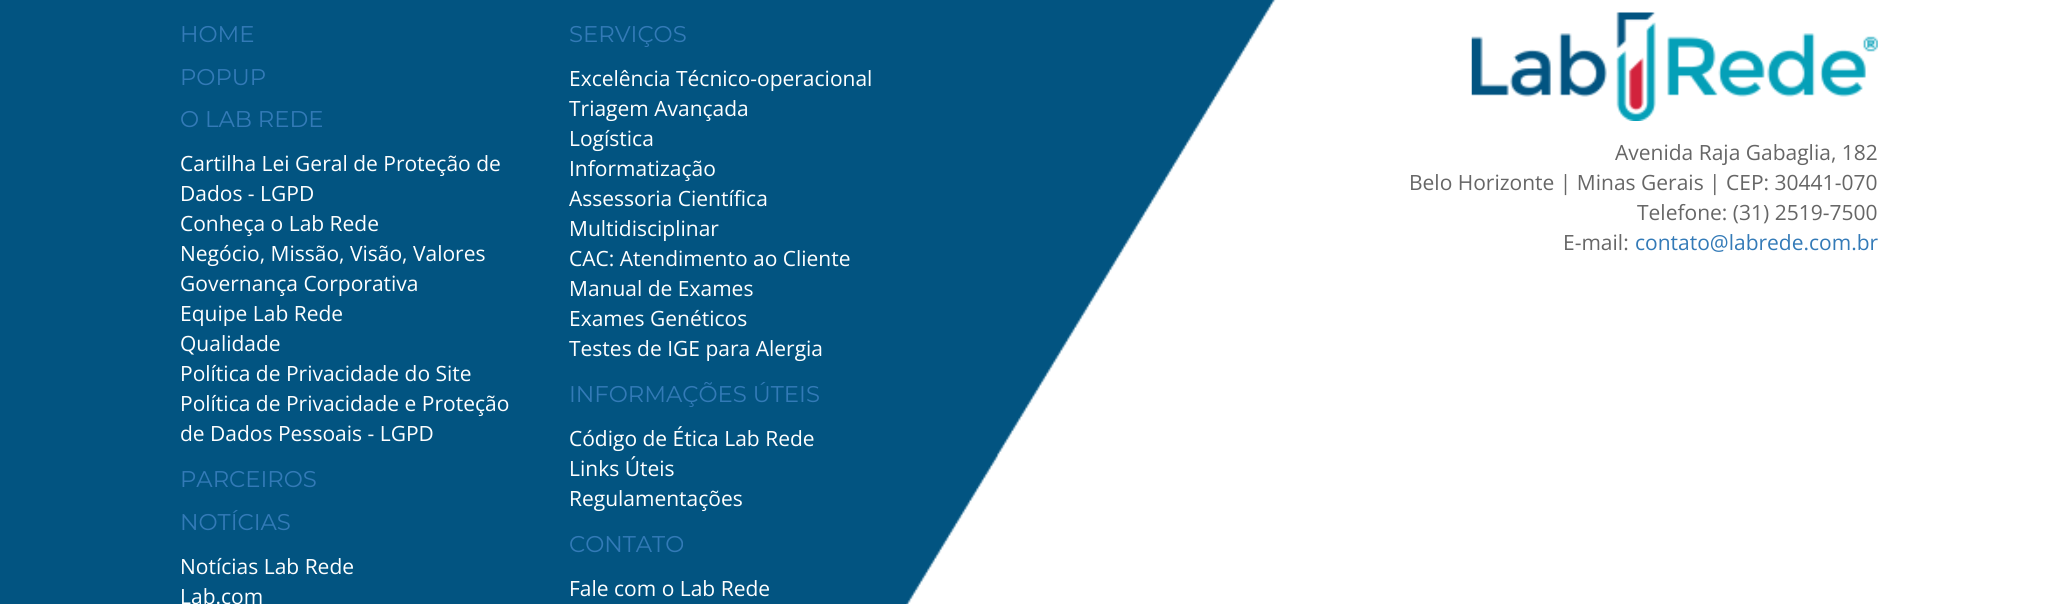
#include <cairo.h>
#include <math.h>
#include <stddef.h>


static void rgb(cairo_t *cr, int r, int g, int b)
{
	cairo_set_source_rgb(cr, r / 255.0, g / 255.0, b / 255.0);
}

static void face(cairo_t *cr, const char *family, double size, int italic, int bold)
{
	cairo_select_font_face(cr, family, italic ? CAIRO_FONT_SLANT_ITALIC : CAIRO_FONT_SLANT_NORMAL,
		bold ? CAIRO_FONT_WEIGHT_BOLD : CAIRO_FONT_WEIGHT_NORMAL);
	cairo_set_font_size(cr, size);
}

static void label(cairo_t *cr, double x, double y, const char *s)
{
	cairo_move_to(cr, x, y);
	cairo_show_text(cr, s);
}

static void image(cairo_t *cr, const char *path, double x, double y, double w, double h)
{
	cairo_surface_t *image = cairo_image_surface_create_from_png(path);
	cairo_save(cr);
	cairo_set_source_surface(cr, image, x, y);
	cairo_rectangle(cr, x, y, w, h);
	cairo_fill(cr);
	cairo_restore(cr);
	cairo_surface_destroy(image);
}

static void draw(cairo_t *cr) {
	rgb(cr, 2, 84, 129);
	cairo_paint(cr);
	image(cr, "image0.png", 906, 0, 1151, 604);
	face(cr, "Montserrat", 22.75, 0, 0);
	rgb(cr, 51, 122, 183);
	label(cr, 180, 42, "HOME");
	label(cr, 180, 85, "POPUP");
	label(cr, 180, 127, "O LAB REDE");
	face(cr, "Open Sans", 21, 0, 0);
	rgb(cr, 255, 255, 255);
	label(cr, 180, 171, "Cartilha Lei Geral de Proteção de");
	label(cr, 180, 201, "Dados - LGPD");
	label(cr, 180, 231, "Conheça o Lab Rede");
	label(cr, 180, 261, "Negócio, Missão, Visão, Valores");
	label(cr, 180, 291, "Governança Corporativa");
	label(cr, 180, 321, "Equipe Lab Rede");
	label(cr, 180, 351, "Qualidade");
	label(cr, 180, 381, "Política de Privacidade do Site");
	label(cr, 180, 411, "Política de Privacidade e Proteção");
	label(cr, 180, 441, "de Dados Pessoais - LGPD");
	face(cr, "Montserrat", 22.75, 0, 0);
	rgb(cr, 51, 122, 183);
	label(cr, 180, 487, "PARCEIROS");
	label(cr, 180, 530, "NOTÍCIAS");
	face(cr, "Open Sans", 21, 0, 0);
	rgb(cr, 255, 255, 255);
	label(cr, 180, 574, "Notícias Lab Rede");
	label(cr, 180, 604, "Lab.com");
	face(cr, "Montserrat", 22.75, 0, 0);
	rgb(cr, 51, 122, 183);
	label(cr, 569, 42, "SERVIÇOS");
	face(cr, "Open Sans", 21, 0, 0);
	rgb(cr, 255, 255, 255);
	label(cr, 569, 86, "Excelência Técnico-operacional");
	label(cr, 569, 116, "Triagem Avançada");
	label(cr, 569, 146, "Logística");
	label(cr, 569, 176, "Informatização");
	label(cr, 569, 206, "Assessoria Científica");
	label(cr, 569, 236, "Multidisciplinar");
	label(cr, 569, 266, "CAC: Atendimento ao Cliente");
	label(cr, 569, 296, "Manual de Exames");
	label(cr, 569, 326, "Exames Genéticos");
	label(cr, 569, 356, "Testes de IGE para Alergia");
	face(cr, "Montserrat", 22.75, 0, 0);
	rgb(cr, 51, 122, 183);
	label(cr, 569, 402, "INFORMAÇÕES ÚTEIS");
	face(cr, "Open Sans", 21, 0, 0);
	rgb(cr, 255, 255, 255);
	label(cr, 569, 446, "Código de Ética Lab Rede");
	label(cr, 569, 476, "Links Úteis");
	label(cr, 569, 506, "Regulamentações");
	face(cr, "Montserrat", 22.75, 0, 0);
	rgb(cr, 51, 122, 183);
	label(cr, 569, 552, "CONTATO");
	face(cr, "Open Sans", 21, 0, 0);
	rgb(cr, 255, 255, 255);
	label(cr, 569, 596, "Fale com o Lab Rede");
	image(cr, "image1.png", 1471, 12, 407, 109);
	rgb(cr, 102, 102, 102);
	label(cr, 1615, 160, "Avenida Raja Gabaglia, 182");
	label(cr, 1409, 190, "Belo Horizonte | Minas Gerais | CEP: 30441-070");
	label(cr, 1637, 220, "Telefone: (31) 2519-7500");
	label(cr, 1563, 250, "E-mail:");
	rgb(cr, 51, 122, 183);
	label(cr, 1635, 250, "contato@labrede.com.br");
}

int main(void) {
	cairo_surface_t *surface = cairo_image_surface_create(CAIRO_FORMAT_RGB24, 2057, 604);
	cairo_t *cr = cairo_create(surface);
	cairo_font_options_t *options = cairo_font_options_create();
	cairo_font_options_set_hint_metrics(options, CAIRO_HINT_METRICS_OFF);
	cairo_font_options_set_hint_style(options, CAIRO_HINT_STYLE_NONE);
	cairo_set_font_options(cr, options);
	cairo_set_miter_limit(cr, 4);
	draw(cr);
	cairo_surface_write_to_png(surface, "render.png");
	cairo_font_options_destroy(options);
	cairo_destroy(cr);
	cairo_surface_destroy(surface);
	return 0;
}
